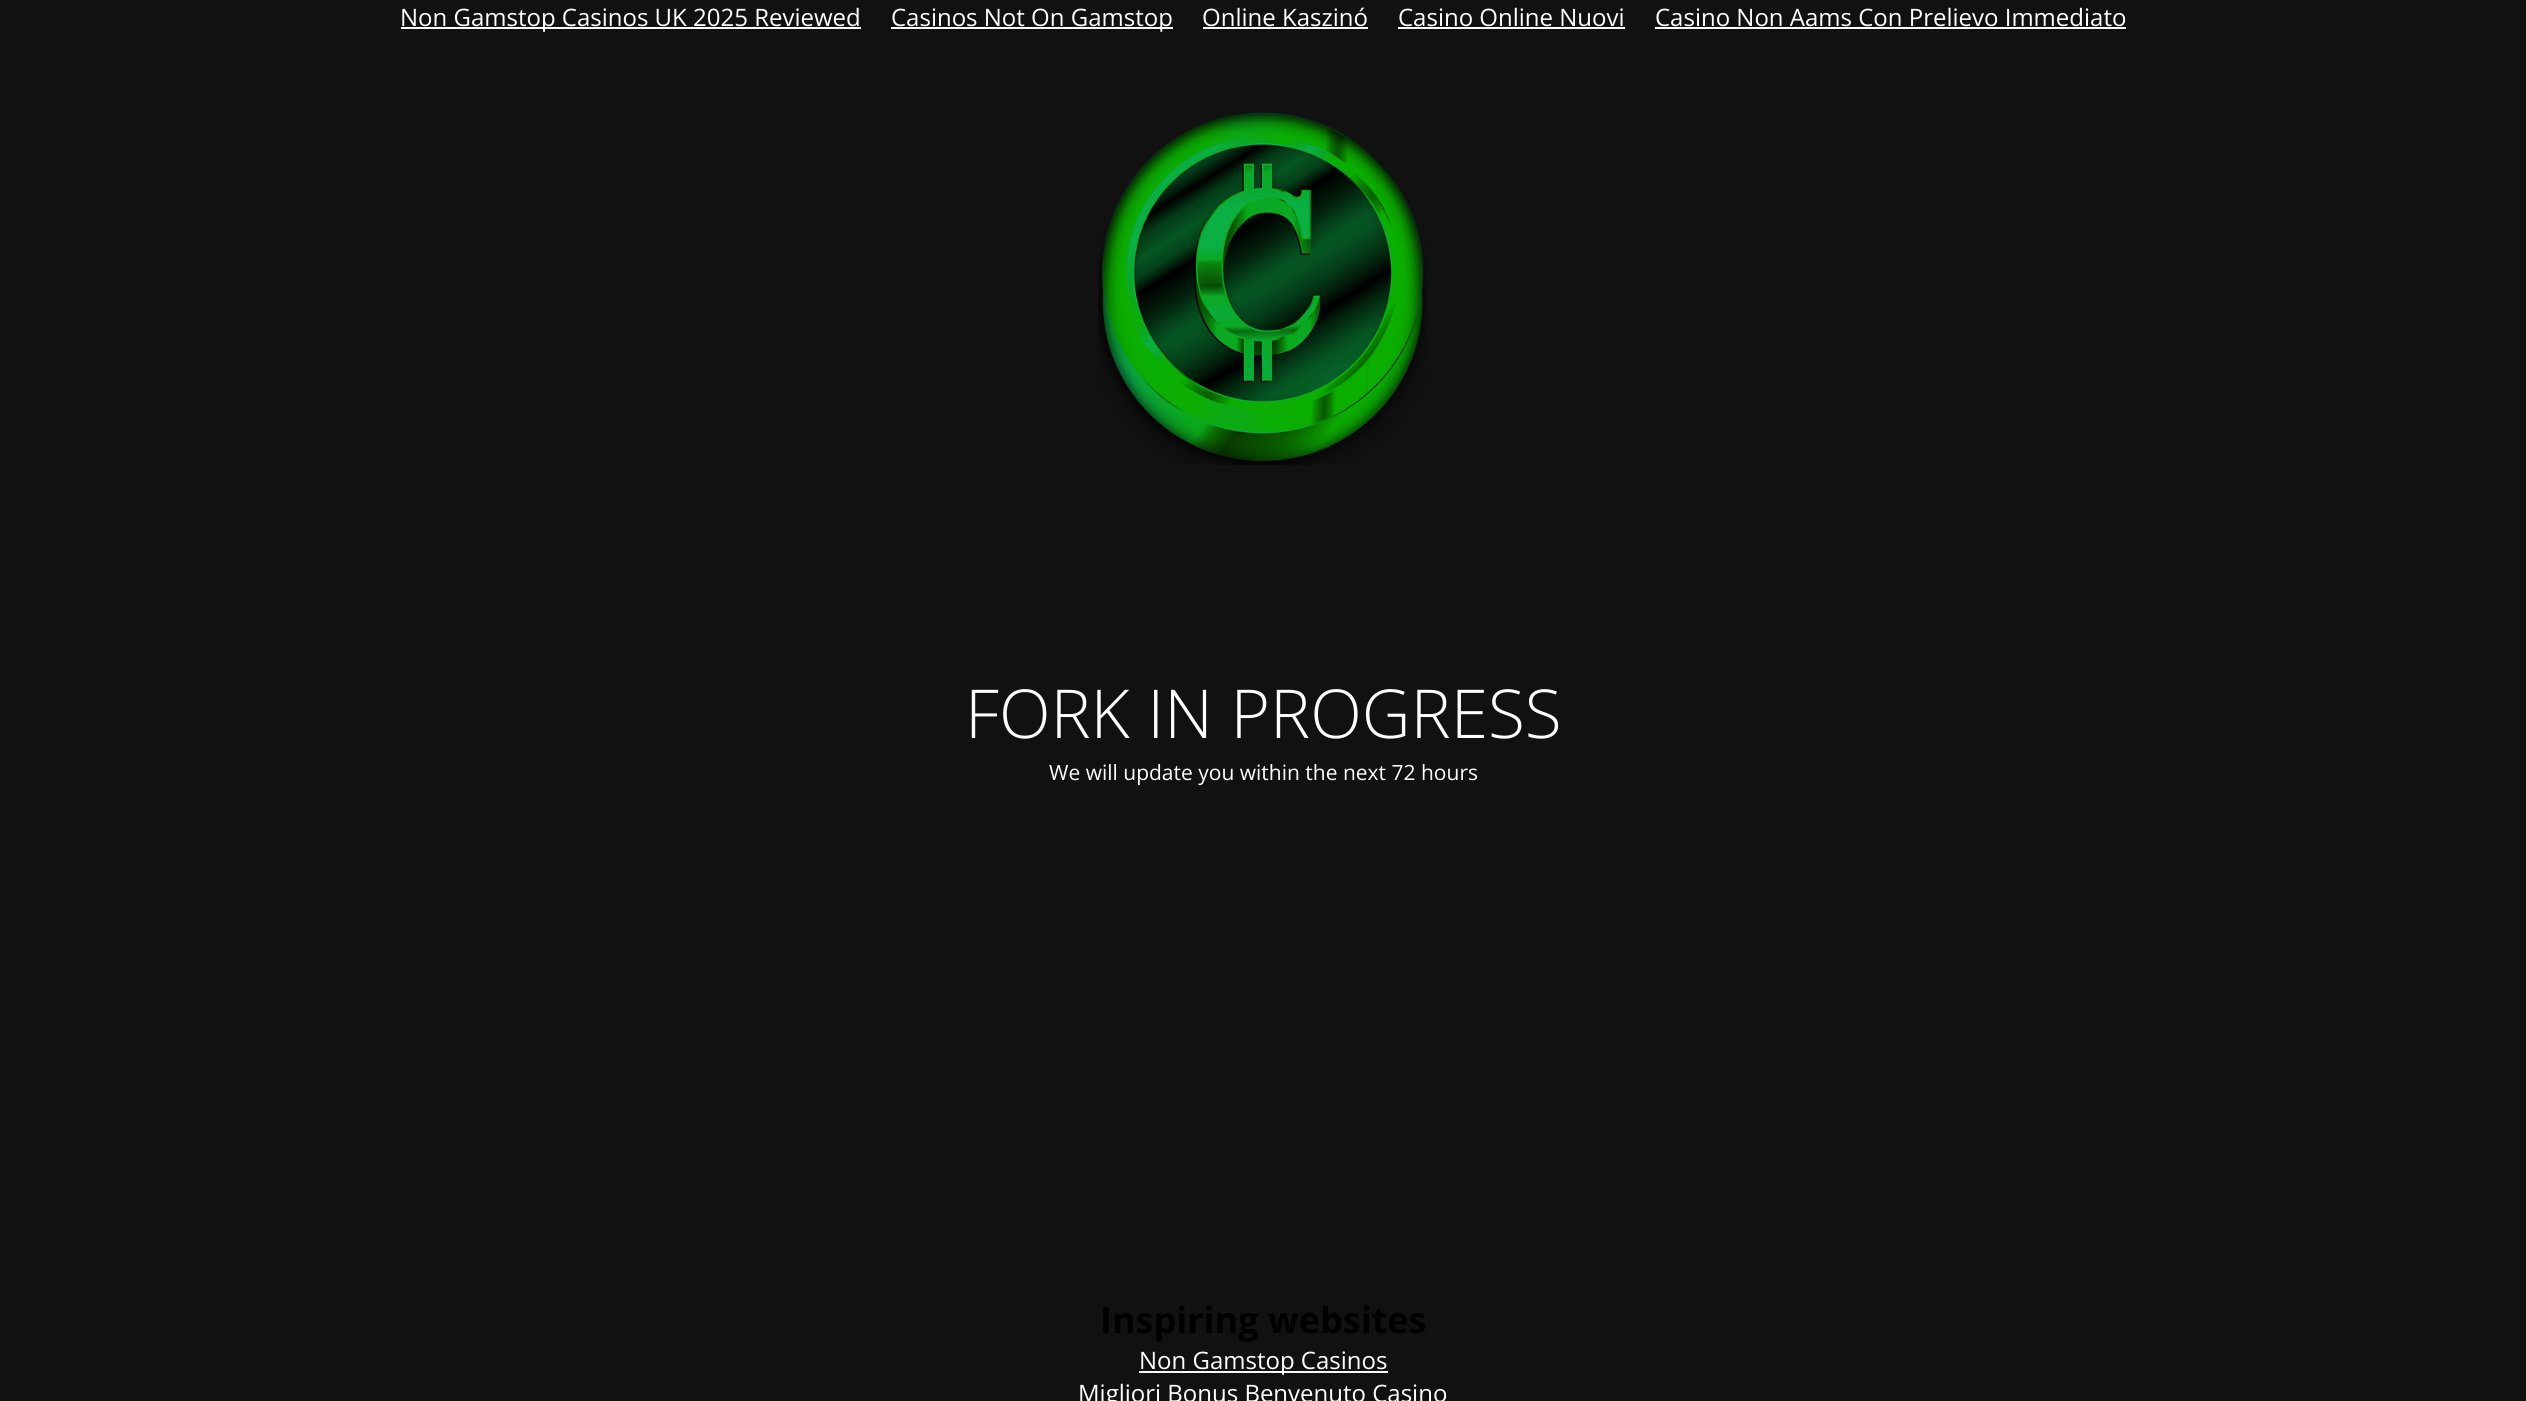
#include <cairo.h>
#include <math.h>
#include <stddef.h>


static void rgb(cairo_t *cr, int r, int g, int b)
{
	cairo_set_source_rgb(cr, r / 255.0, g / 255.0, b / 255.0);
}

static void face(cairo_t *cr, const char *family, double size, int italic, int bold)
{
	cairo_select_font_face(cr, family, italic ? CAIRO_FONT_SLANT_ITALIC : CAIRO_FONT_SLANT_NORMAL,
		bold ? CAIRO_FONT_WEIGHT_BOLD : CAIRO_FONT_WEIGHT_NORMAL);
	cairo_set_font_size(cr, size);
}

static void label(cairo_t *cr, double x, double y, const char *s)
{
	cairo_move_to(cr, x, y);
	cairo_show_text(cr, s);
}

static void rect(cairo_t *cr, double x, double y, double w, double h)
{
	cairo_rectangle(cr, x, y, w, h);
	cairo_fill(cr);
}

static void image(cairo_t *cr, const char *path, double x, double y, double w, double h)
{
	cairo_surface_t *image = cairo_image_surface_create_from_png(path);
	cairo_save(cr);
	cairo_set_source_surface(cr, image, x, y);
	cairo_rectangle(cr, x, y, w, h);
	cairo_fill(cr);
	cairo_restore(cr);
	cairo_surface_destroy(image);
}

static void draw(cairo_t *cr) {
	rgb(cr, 17, 17, 17);
	cairo_paint(cr);
	rgb(cr, 255, 255, 255);
	rect(cr, 401, 27, 460, 2);
	face(cr, "Open Sans", 24, 0, 0);
	label(cr, 400, 26, "Non Gamstop Casinos UK 2025 Reviewed");
	rect(cr, 891, 27, 282, 2);
	label(cr, 891, 26, "Casinos Not On Gamstop");
	label(cr, 1202, 26, "Online Kaszinó");
	rect(cr, 1203, 27, 165, 2);
	label(cr, 1398, 26, "Casino Online Nuovi");
	rect(cr, 1398, 27, 227, 2);
	label(cr, 1655, 26, "Casino Non Aams Con Prelievo Immediato");
	rect(cr, 1655, 27, 471, 2);
	image(cr, "image0.png", 1098, 112, 329, 353);
	face(cr, "Open Sans Light", 67.5, 0, 0);
	label(cr, 965, 738, "FORK IN PROGRESS");
	face(cr, "Open Sans", 21, 0, 0);
	label(cr, 1049, 780, "We will update you within the next 72 hours");
	face(cr, "Open Sans", 36, 0, 1);
	rgb(cr, 0, 0, 0);
	label(cr, 1100, 1333, "Inspiring websites");
	rgb(cr, 250, 250, 250);
	rect(cr, 1139, 1371, 249, 2);
	face(cr, "Open Sans", 24, 0, 0);
	rgb(cr, 255, 255, 255);
	label(cr, 1139, 1369, "Non Gamstop Casinos");
	label(cr, 1078, 1402, "Migliori Bonus Benvenuto Casino");
}

int main(void) {
	cairo_surface_t *surface = cairo_image_surface_create(CAIRO_FORMAT_RGB24, 2526, 1401);
	cairo_t *cr = cairo_create(surface);
	cairo_font_options_t *options = cairo_font_options_create();
	cairo_font_options_set_hint_metrics(options, CAIRO_HINT_METRICS_OFF);
	cairo_font_options_set_hint_style(options, CAIRO_HINT_STYLE_NONE);
	cairo_set_font_options(cr, options);
	cairo_set_miter_limit(cr, 4);
	draw(cr);
	cairo_surface_write_to_png(surface, "render.png");
	cairo_font_options_destroy(options);
	cairo_destroy(cr);
	cairo_surface_destroy(surface);
	return 0;
}
